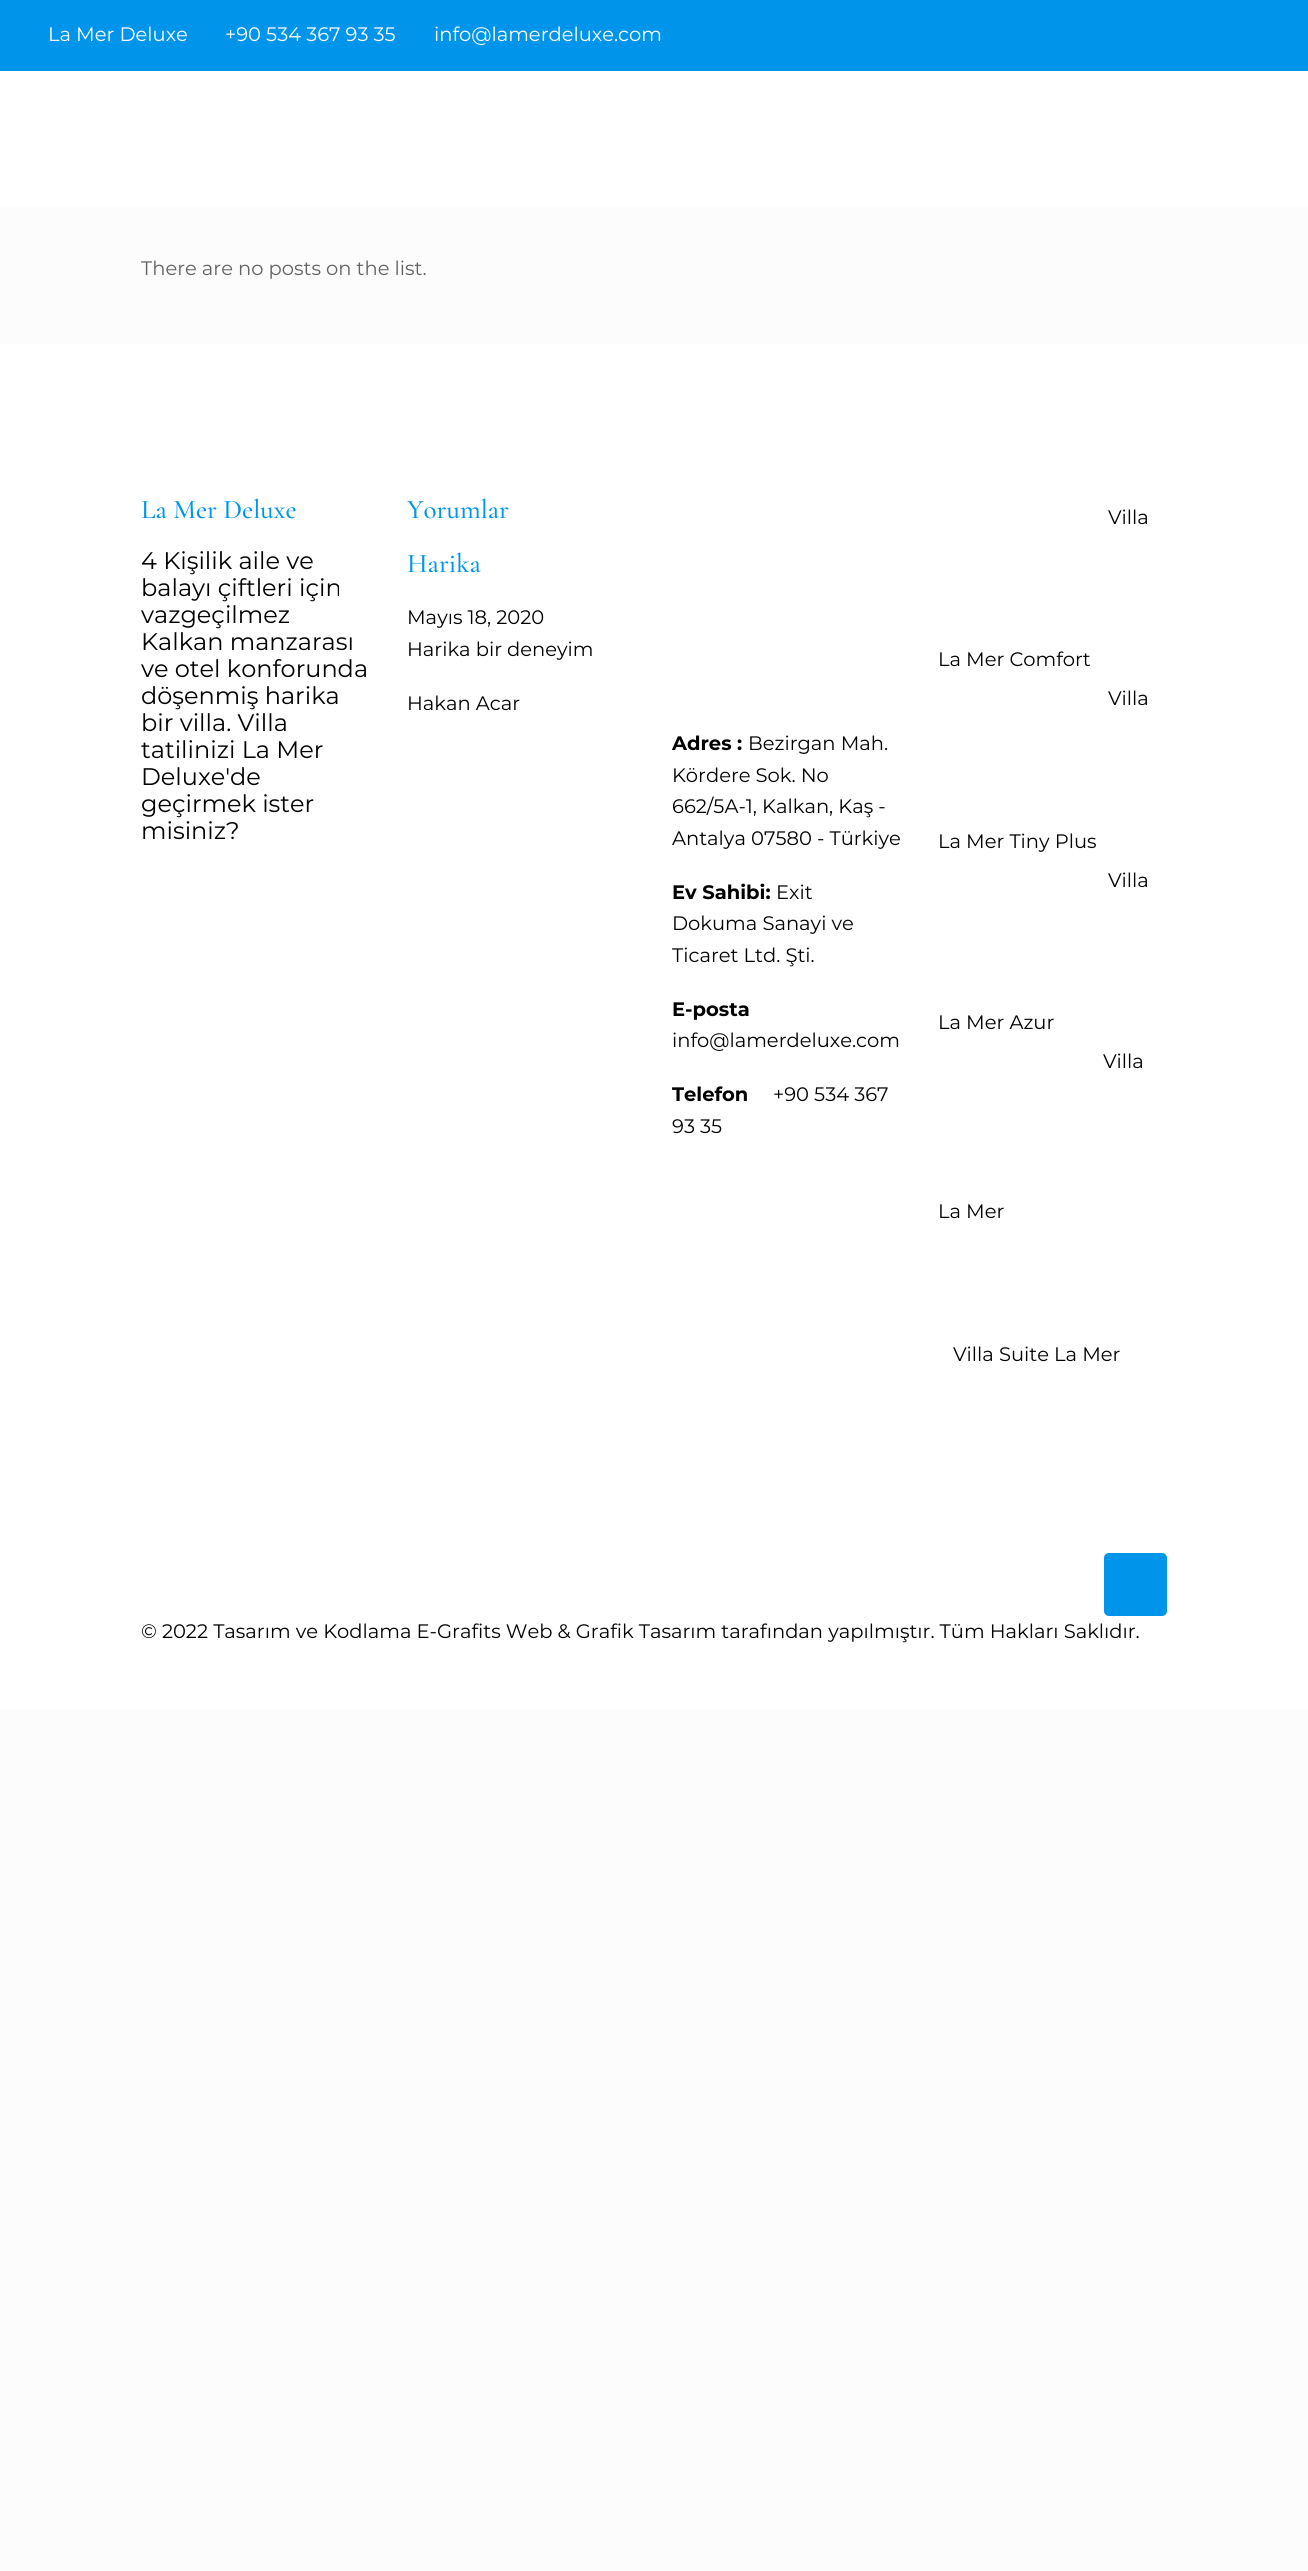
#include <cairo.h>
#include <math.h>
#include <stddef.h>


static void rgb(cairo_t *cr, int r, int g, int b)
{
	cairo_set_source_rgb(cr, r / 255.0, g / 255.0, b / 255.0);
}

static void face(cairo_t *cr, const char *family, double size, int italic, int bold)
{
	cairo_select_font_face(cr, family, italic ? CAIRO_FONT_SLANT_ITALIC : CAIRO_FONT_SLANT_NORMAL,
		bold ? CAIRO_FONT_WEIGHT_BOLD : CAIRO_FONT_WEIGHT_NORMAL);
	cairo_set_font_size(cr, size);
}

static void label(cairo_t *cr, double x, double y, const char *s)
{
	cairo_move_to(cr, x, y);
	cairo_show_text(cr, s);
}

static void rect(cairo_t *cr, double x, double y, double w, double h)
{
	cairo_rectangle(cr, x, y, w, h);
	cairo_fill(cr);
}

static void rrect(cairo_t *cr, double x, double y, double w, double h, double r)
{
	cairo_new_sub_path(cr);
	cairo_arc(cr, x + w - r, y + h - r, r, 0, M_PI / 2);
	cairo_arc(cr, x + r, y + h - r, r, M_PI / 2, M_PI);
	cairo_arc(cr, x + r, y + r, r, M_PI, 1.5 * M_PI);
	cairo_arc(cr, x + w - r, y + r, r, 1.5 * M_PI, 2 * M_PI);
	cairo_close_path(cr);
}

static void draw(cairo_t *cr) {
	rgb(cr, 252, 252, 252);
	cairo_paint(cr);
	rgb(cr, 255, 255, 255);
	rect(cr, 0, 71, 1308, 136);
	rgb(cr, 0, 149, 235);
	rect(cr, 0, 0, 1308, 71);
	face(cr, "Montserrat", 19.5, 0, 0);
	rgb(cr, 255, 255, 255);
	label(cr, 48, 41, "La Mer Deluxe");
	label(cr, 225, 41, "+90 534 367 93 35");
	label(cr, 434, 41, "info@lamerdeluxe.com");
	rgb(cr, 98, 98, 98);
	label(cr, 141, 275, "There are no posts on the list.");
	rgb(cr, 255, 255, 255);
	rect(cr, 0, 344, 1308, 1365);
	face(cr, "Cormorant Garamond Medium", 27, 0, 0);
	rgb(cr, 0, 149, 235);
	label(cr, 141, 518, "La Mer Deluxe");
	face(cr, "Montserrat", 24, 0, 0);
	rgb(cr, 0, 0, 0);
	label(cr, 141, 569, "4 Kişilik aile ve");
	label(cr, 141, 596, "balayı çiftleri için");
	label(cr, 141, 623, "vazgeçilmez");
	label(cr, 141, 650, "Kalkan manzarası");
	label(cr, 141, 677, "ve otel konforunda");
	label(cr, 141, 704, "döşenmiş harika");
	label(cr, 141, 731, "bir villa. Villa");
	label(cr, 141, 758, "tatilinizi La Mer");
	label(cr, 141, 785, "Deluxe'de");
	label(cr, 141, 812, "geçirmek ister");
	label(cr, 141, 839, "misiniz?");
	face(cr, "Cormorant Garamond Medium", 27, 0, 0);
	rgb(cr, 0, 149, 235);
	label(cr, 407, 518, "Yorumlar");
	label(cr, 407, 572, "Harika");
	face(cr, "Montserrat", 19.5, 0, 0);
	rgb(cr, 0, 0, 0);
	label(cr, 407, 624, "Mayıs 18, 2020");
	label(cr, 407, 656, "Harika bir deneyim");
	label(cr, 407, 710, "Hakan Acar");
	face(cr, "Montserrat", 19.5, 0, 1);
	label(cr, 672, 750, "Adres :");
	face(cr, "Montserrat", 19.5, 0, 0);
	label(cr, 748, 750, "Bezirgan Mah.");
	label(cr, 672, 782, "Kördere Sok. No");
	label(cr, 672, 813, "662/5A-1, Kalkan, Kaş -");
	label(cr, 672, 845, "Antalya 07580 - Türkiye");
	face(cr, "Montserrat", 19.5, 0, 1);
	label(cr, 672, 899, "Ev Sahibi:");
	face(cr, "Montserrat", 19.5, 0, 0);
	label(cr, 776, 899, "Exit");
	label(cr, 672, 930, "Dokuma Sanayi ve");
	label(cr, 672, 962, "Ticaret Ltd. Şti.");
	face(cr, "Montserrat", 19.5, 0, 1);
	label(cr, 672, 1016, "E-posta");
	face(cr, "Montserrat", 19.5, 0, 0);
	label(cr, 672, 1047, "info@lamerdeluxe.com");
	face(cr, "Montserrat", 19.5, 0, 1);
	label(cr, 672, 1101, "Telefon");
	face(cr, "Montserrat", 19.5, 0, 0);
	label(cr, 773, 1101, "+90 534 367");
	label(cr, 672, 1133, "93 35");
	label(cr, 1108, 524, "Villa");
	label(cr, 938, 666, "La Mer Comfort");
	label(cr, 1108, 705, "Villa");
	label(cr, 938, 848, "La Mer Tiny Plus");
	label(cr, 1108, 887, "Villa");
	label(cr, 938, 1029, "La Mer Azur");
	label(cr, 1103, 1068, "Villa");
	label(cr, 938, 1218, "La Mer");
	label(cr, 953, 1361, "Villa Suite La Mer");
	rgb(cr, 0, 149, 235);
	rrect(cr, 1104, 1553, 63, 63, 5);
	cairo_fill(cr);
	rgb(cr, 0, 0, 0);
	label(cr, 141, 1638, "© 2022 Tasarım ve Kodlama E-Grafits Web & Grafik Tasarım tarafından yapılmıştır. Tüm Hakları Saklıdır.");
}

int main(void) {
	cairo_surface_t *surface = cairo_image_surface_create(CAIRO_FORMAT_RGB24, 1308, 2571);
	cairo_t *cr = cairo_create(surface);
	cairo_font_options_t *options = cairo_font_options_create();
	cairo_font_options_set_hint_metrics(options, CAIRO_HINT_METRICS_OFF);
	cairo_font_options_set_hint_style(options, CAIRO_HINT_STYLE_NONE);
	cairo_set_font_options(cr, options);
	cairo_set_miter_limit(cr, 4);
	draw(cr);
	cairo_surface_write_to_png(surface, "render.png");
	cairo_font_options_destroy(options);
	cairo_destroy(cr);
	cairo_surface_destroy(surface);
	return 0;
}
